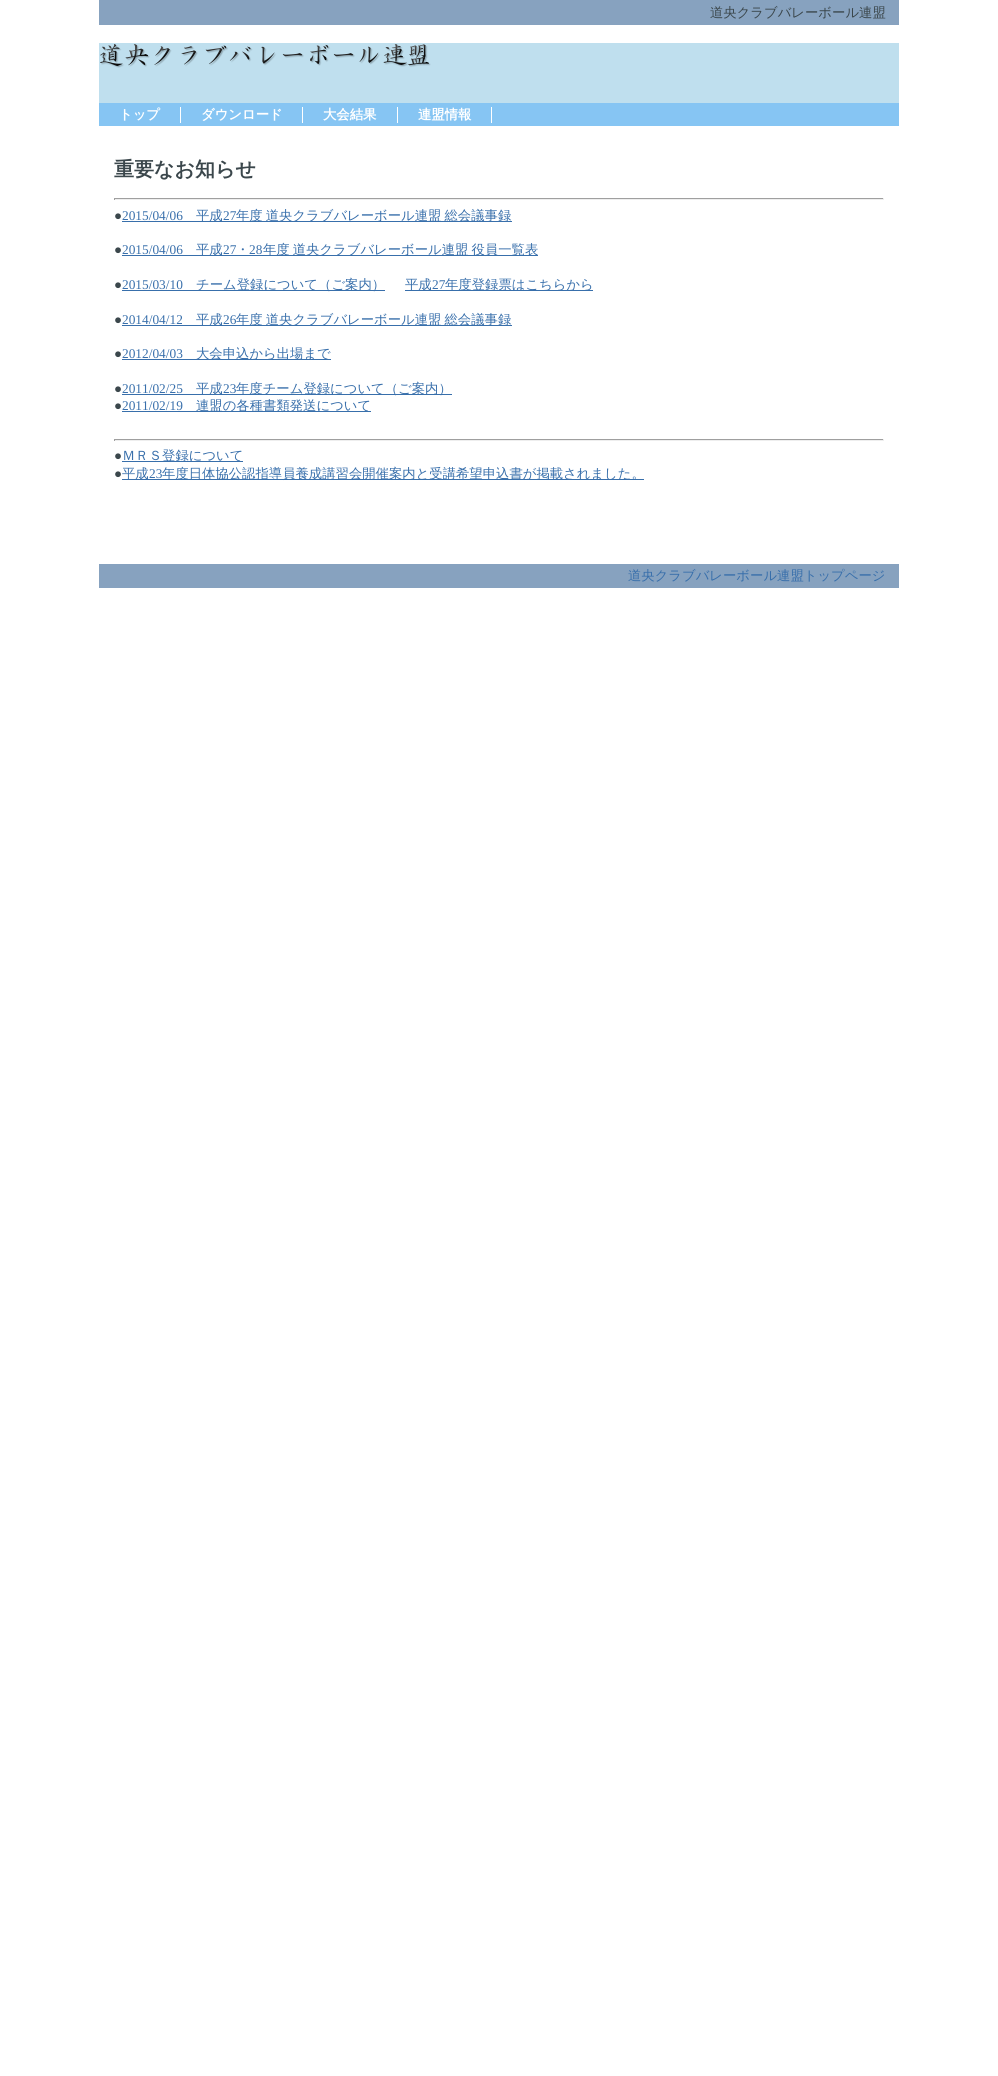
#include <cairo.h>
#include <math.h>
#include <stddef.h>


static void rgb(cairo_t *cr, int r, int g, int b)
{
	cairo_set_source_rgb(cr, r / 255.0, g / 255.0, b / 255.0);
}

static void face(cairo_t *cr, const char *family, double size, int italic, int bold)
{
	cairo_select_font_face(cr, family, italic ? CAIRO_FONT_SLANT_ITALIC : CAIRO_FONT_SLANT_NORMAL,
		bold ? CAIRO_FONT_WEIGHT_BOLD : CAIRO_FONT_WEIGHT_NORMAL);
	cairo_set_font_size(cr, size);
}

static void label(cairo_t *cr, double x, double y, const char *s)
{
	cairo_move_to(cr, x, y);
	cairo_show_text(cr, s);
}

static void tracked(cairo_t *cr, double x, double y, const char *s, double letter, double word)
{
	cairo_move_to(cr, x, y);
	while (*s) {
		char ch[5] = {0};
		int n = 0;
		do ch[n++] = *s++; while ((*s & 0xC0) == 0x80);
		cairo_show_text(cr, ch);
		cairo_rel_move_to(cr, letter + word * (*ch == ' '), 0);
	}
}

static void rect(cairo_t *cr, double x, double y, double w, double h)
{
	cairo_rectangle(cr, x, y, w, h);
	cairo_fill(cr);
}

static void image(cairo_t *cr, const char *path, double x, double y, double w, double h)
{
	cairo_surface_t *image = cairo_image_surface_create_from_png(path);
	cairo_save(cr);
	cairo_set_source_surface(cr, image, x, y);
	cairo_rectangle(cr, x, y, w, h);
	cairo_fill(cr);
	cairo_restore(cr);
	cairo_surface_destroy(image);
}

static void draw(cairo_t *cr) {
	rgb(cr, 255, 255, 255);
	cairo_paint(cr);
	rgb(cr, 135, 162, 191);
	rect(cr, 99, 0, 800, 25);
	face(cr, "WenQuanYi Zen Hei Medium", 13.35, 0, 0);
	rgb(cr, 59, 71, 76);
	label(cr, 710, 17, "道央クラブバレーボール連盟");
	rgb(cr, 191, 223, 238);
	rect(cr, 99, 43, 800, 60);
	image(cr, "image0.png", 100, 44, 331, 24);
	rgb(cr, 134, 197, 243);
	rect(cr, 99, 103, 800, 23);
	rgb(cr, 255, 255, 255);
	rect(cr, 180, 107, 1, 16);
	face(cr, "WenQuanYi Zen Hei", 13.35, 0, 1);
	label(cr, 119, 119, "トップ");
	rect(cr, 302, 107, 1, 16);
	label(cr, 201, 119, "ダウンロード");
	rect(cr, 397, 107, 1, 16);
	label(cr, 323, 119, "大会結果");
	rect(cr, 491, 107, 1, 16);
	label(cr, 418, 119, "連盟情報");
	face(cr, "WenQuanYi Zen Hei", 20, 0, 1);
	rgb(cr, 59, 71, 76);
	label(cr, 114, 176, "重要なお知らせ");
	rgb(cr, 159, 159, 159);
	rect(cr, 114, 198, 770, 1);
	rgb(cr, 238, 238, 238);
	rect(cr, 883, 198, 1, 2);
	rect(cr, 114, 199, 770, 1);
	rgb(cr, 159, 159, 159);
	rect(cr, 114, 198, 1, 2);
	face(cr, "Liberation Serif", 13.35, 0, 0);
	rgb(cr, 59, 71, 76);
	label(cr, 114, 220, "●");
	rgb(cr, 56, 111, 171);
	label(cr, 122, 220, "2015/04/06");
	rect(cr, 122, 221, 390, 1);
	face(cr, "WenQuanYi Zen Hei Medium", 13.35, 0, 0);
	label(cr, 196, 220, "平成");
	face(cr, "Liberation Serif", 13.35, 0, 0);
	label(cr, 223, 220, "27");
	face(cr, "WenQuanYi Zen Hei Medium", 13.35, 0, 0);
	tracked(cr, 236, 220, "年度 道央クラブバレーボール連盟 総会議事録", 0, -1);
	face(cr, "Liberation Serif", 13.35, 0, 0);
	rgb(cr, 59, 71, 76);
	label(cr, 114, 254, "●");
	rgb(cr, 56, 111, 171);
	label(cr, 122, 254, "2015/04/06");
	rect(cr, 122, 255, 416, 1);
	face(cr, "WenQuanYi Zen Hei Medium", 13.35, 0, 0);
	label(cr, 196, 254, "平成");
	face(cr, "Liberation Serif", 13.35, 0, 0);
	label(cr, 223, 254, "27");
	face(cr, "WenQuanYi Zen Hei Medium", 13.35, 0, 0);
	label(cr, 236, 254, "・");
	face(cr, "Liberation Serif", 13.35, 0, 0);
	label(cr, 249, 254, "28");
	face(cr, "WenQuanYi Zen Hei Medium", 13.35, 0, 0);
	tracked(cr, 263, 254, "年度 道央クラブバレーボール連盟 役員一覧表", 0, -1);
	face(cr, "Liberation Serif", 13.35, 0, 0);
	rgb(cr, 59, 71, 76);
	label(cr, 114, 289, "●");
	rgb(cr, 56, 111, 171);
	label(cr, 122, 289, "2015/03/10");
	rect(cr, 122, 290, 263, 1);
	face(cr, "WenQuanYi Zen Hei Medium", 13.35, 0, 0);
	label(cr, 196, 289, "チーム登録について（ご案内）");
	rect(cr, 405, 290, 188, 1);
	label(cr, 405, 289, "平成");
	face(cr, "Liberation Serif", 13.35, 0, 0);
	label(cr, 432, 289, "27");
	face(cr, "WenQuanYi Zen Hei Medium", 13.35, 0, 0);
	label(cr, 445, 289, "年度登録票はこちらから");
	face(cr, "Liberation Serif", 13.35, 0, 0);
	rgb(cr, 59, 71, 76);
	label(cr, 114, 324, "●");
	rgb(cr, 56, 111, 171);
	label(cr, 122, 324, "2014/04/12");
	rect(cr, 122, 325, 390, 1);
	face(cr, "WenQuanYi Zen Hei Medium", 13.35, 0, 0);
	label(cr, 196, 324, "平成");
	face(cr, "Liberation Serif", 13.35, 0, 0);
	label(cr, 223, 324, "26");
	face(cr, "WenQuanYi Zen Hei Medium", 13.35, 0, 0);
	tracked(cr, 236, 324, "年度 道央クラブバレーボール連盟 総会議事録", 0, -1);
	face(cr, "Liberation Serif", 13.35, 0, 0);
	rgb(cr, 59, 71, 76);
	label(cr, 114, 358, "●");
	rgb(cr, 56, 111, 171);
	label(cr, 122, 358, "2012/04/03");
	rect(cr, 122, 359, 209, 1);
	face(cr, "WenQuanYi Zen Hei Medium", 13.35, 0, 0);
	label(cr, 196, 358, "大会申込から出場まで");
	face(cr, "Liberation Serif", 13.35, 0, 0);
	rgb(cr, 59, 71, 76);
	label(cr, 114, 393, "●");
	rgb(cr, 56, 111, 171);
	label(cr, 122, 393, "2011/02/25");
	rect(cr, 122, 394, 330, 1);
	face(cr, "WenQuanYi Zen Hei Medium", 13.35, 0, 0);
	label(cr, 196, 393, "平成");
	face(cr, "Liberation Serif", 13.35, 0, 0);
	label(cr, 223, 393, "23");
	face(cr, "WenQuanYi Zen Hei Medium", 13.35, 0, 0);
	label(cr, 236, 393, "年度チーム登録について（ご案内）");
	face(cr, "Liberation Serif", 13.35, 0, 0);
	rgb(cr, 59, 71, 76);
	label(cr, 114, 410, "●");
	rgb(cr, 56, 111, 171);
	label(cr, 122, 410, "2011/02/19");
	rect(cr, 122, 411, 249, 1);
	face(cr, "WenQuanYi Zen Hei Medium", 13.35, 0, 0);
	label(cr, 196, 410, "連盟の各種書類発送について");
	rgb(cr, 159, 159, 159);
	rect(cr, 114, 439, 770, 1);
	rgb(cr, 238, 238, 238);
	rect(cr, 883, 439, 1, 2);
	rect(cr, 114, 440, 770, 1);
	rgb(cr, 159, 159, 159);
	rect(cr, 114, 439, 1, 2);
	face(cr, "Liberation Serif", 13.35, 0, 0);
	rgb(cr, 59, 71, 76);
	label(cr, 114, 460, "●");
	rgb(cr, 56, 111, 171);
	rect(cr, 122, 461, 121, 1);
	face(cr, "WenQuanYi Zen Hei Medium", 13.35, 0, 0);
	label(cr, 122, 460, "ＭＲＳ登録について");
	face(cr, "Liberation Serif", 13.35, 0, 0);
	rgb(cr, 59, 71, 76);
	label(cr, 114, 478, "●");
	rgb(cr, 56, 111, 171);
	rect(cr, 122, 479, 522, 1);
	face(cr, "WenQuanYi Zen Hei Medium", 13.35, 0, 0);
	label(cr, 122, 478, "平成");
	face(cr, "Liberation Serif", 13.35, 0, 0);
	label(cr, 149, 478, "23");
	face(cr, "WenQuanYi Zen Hei Medium", 13.35, 0, 0);
	label(cr, 162, 478, "年度日体協公認指導員養成講習会開催案内と受講希望申込書が掲載されました。");
	rgb(cr, 135, 162, 191);
	rect(cr, 99, 564, 800, 24);
	rgb(cr, 56, 111, 171);
	label(cr, 628, 580, "道央クラブバレーボール連盟トップページ");
}

int main(void) {
	cairo_surface_t *surface = cairo_image_surface_create(CAIRO_FORMAT_RGB24, 998, 2076);
	cairo_t *cr = cairo_create(surface);
	cairo_font_options_t *options = cairo_font_options_create();
	cairo_font_options_set_hint_metrics(options, CAIRO_HINT_METRICS_OFF);
	cairo_font_options_set_hint_style(options, CAIRO_HINT_STYLE_NONE);
	cairo_set_font_options(cr, options);
	cairo_set_miter_limit(cr, 4);
	draw(cr);
	cairo_surface_write_to_png(surface, "render.png");
	cairo_font_options_destroy(options);
	cairo_destroy(cr);
	cairo_surface_destroy(surface);
	return 0;
}
